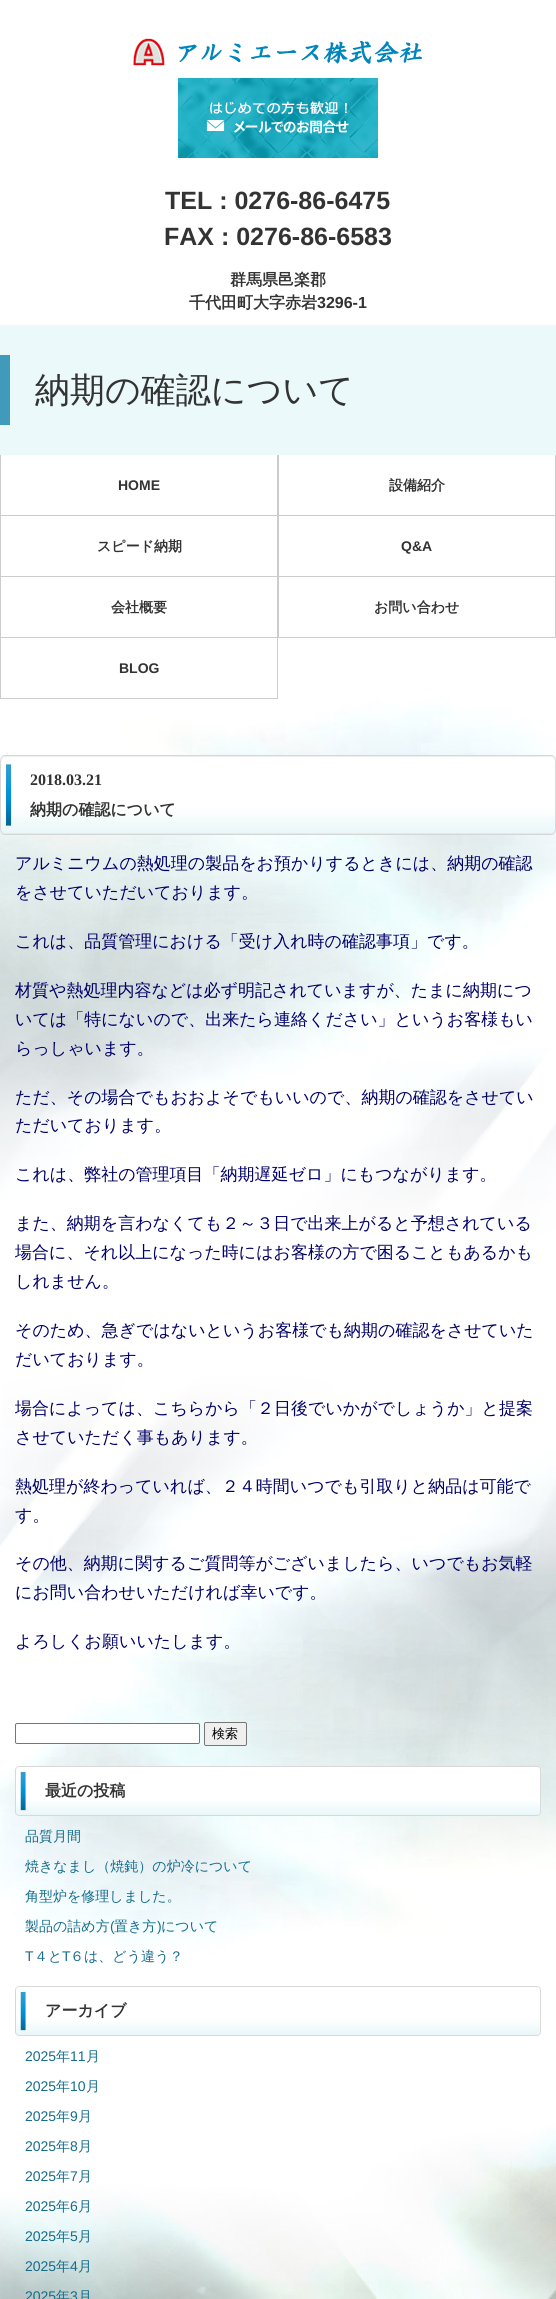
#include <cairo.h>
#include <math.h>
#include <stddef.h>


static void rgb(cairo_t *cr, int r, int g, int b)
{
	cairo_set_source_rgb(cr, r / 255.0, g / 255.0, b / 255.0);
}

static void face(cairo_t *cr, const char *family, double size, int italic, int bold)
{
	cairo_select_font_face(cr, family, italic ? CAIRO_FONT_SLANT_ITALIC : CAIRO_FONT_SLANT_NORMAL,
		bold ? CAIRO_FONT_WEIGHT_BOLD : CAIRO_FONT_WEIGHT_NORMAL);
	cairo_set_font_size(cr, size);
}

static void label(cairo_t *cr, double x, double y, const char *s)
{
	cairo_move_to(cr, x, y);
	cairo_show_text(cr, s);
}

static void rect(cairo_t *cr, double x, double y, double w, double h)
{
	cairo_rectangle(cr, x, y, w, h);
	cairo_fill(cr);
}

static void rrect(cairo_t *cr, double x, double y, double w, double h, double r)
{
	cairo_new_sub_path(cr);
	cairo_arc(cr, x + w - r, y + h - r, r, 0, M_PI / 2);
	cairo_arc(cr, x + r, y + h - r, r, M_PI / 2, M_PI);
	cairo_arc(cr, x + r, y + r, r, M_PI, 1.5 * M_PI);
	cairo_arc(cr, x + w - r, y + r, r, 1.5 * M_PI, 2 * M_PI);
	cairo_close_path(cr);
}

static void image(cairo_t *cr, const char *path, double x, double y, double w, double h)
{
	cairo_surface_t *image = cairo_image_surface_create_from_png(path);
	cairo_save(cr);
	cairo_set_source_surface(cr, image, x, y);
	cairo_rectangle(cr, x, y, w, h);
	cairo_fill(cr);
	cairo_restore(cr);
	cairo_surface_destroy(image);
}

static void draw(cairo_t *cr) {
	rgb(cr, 235, 249, 250);
	cairo_paint(cr);
	rgb(cr, 255, 255, 255);
	rect(cr, 0, 0, 556, 325);
	image(cr, "image0.png", 133, 38, 289, 28);
	image(cr, "image1.png", 178, 78, 200, 80);
	face(cr, "Liberation Sans", 25, 0, 1);
	rgb(cr, 51, 51, 51);
	label(cr, 165, 209, "TEL : 0276-86-6475");
	label(cr, 164, 245, "FAX : 0276-86-6583");
	face(cr, "WenQuanYi Zen Hei", 16, 0, 1);
	label(cr, 230, 285, "群馬県邑楽郡");
	label(cr, 189, 308, "千代田町大字赤岩");
	face(cr, "Liberation Sans", 16, 0, 1);
	label(cr, 317, 308, "3296-1");
	rgb(cr, 64, 155, 187);
	rect(cr, 0, 355, 10, 70);
	face(cr, "WenQuanYi Zen Hei Medium", 35, 0, 0);
	rgb(cr, 51, 51, 51);
	label(cr, 35, 402, "納期の確認について");
	rgb(cr, 255, 255, 255);
	rect(cr, 1, 455, 555, 230);
	image(cr, "image2.png", 0, 685, 556, 1614);
	rgb(cr, 204, 204, 204);
	rect(cr, 277, 455, 1, 244);
	rect(cr, 0, 515, 278, 1);
	rect(cr, 0, 455, 1, 61);
	face(cr, "Liberation Sans", 14, 0, 1);
	rgb(cr, 51, 51, 51);
	label(cr, 118, 490, "HOME");
	rgb(cr, 204, 204, 204);
	rect(cr, 555, 455, 1, 183);
	rect(cr, 278, 515, 278, 1);
	rect(cr, 278, 455, 1, 61);
	face(cr, "WenQuanYi Zen Hei", 14, 0, 1);
	rgb(cr, 51, 51, 51);
	label(cr, 389, 490, "設備紹介");
	rgb(cr, 204, 204, 204);
	rect(cr, 0, 576, 556, 1);
	rect(cr, 0, 516, 1, 61);
	rgb(cr, 51, 51, 51);
	label(cr, 97, 551, "スピード納期");
	rgb(cr, 204, 204, 204);
	rect(cr, 278, 516, 1, 61);
	face(cr, "Liberation Sans", 14, 0, 1);
	rgb(cr, 51, 51, 51);
	label(cr, 401, 551, "Q&A");
	rgb(cr, 204, 204, 204);
	rect(cr, 0, 637, 556, 1);
	rect(cr, 0, 577, 1, 61);
	face(cr, "WenQuanYi Zen Hei", 14, 0, 1);
	rgb(cr, 51, 51, 51);
	label(cr, 111, 612, "会社概要");
	rgb(cr, 204, 204, 204);
	rect(cr, 278, 577, 1, 61);
	rgb(cr, 51, 51, 51);
	label(cr, 374, 612, "お問い合わせ");
	rgb(cr, 204, 204, 204);
	rect(cr, 0, 698, 278, 1);
	rect(cr, 0, 638, 1, 61);
	face(cr, "Liberation Sans", 14, 0, 1);
	rgb(cr, 51, 51, 51);
	label(cr, 119, 673, "BLOG");
	image(cr, "image3.png", 0, 755, 556, 80);
	face(cr, "Liberation Serif", 16, 0, 1);
	label(cr, 30, 785, "2018.03.21");
	face(cr, "WenQuanYi Zen Hei", 16, 0, 1);
	label(cr, 30, 815, "納期の確認について");
	face(cr, "WenQuanYi Zen Hei Medium", 17, 0, 0);
	rgb(cr, 0, 0, 102);
	label(cr, 15, 869, "アルミニウムの熱処理の製品をお預かりするときには、納期の確認");
	label(cr, 15, 898, "をさせていただいております。");
	label(cr, 15, 947, "これは、品質管理における「受け入れ時の確認事項」です。");
	label(cr, 15, 996, "材質や熱処理内容などは必ず明記されていますが、たまに納期につ");
	label(cr, 15, 1025, "いては「特にないので、出来たら連絡ください」というお客様もい");
	label(cr, 15, 1054, "らっしゃいます。");
	label(cr, 15, 1103, "ただ、その場合でもおおよそでもいいので、納期の確認をさせてい");
	label(cr, 15, 1131, "ただいております。");
	label(cr, 15, 1180, "これは、弊社の管理項目「納期遅延ゼロ」にもつながります。");
	label(cr, 15, 1229, "また、納期を言わなくても２～３日で出来上がると予想されている");
	label(cr, 15, 1258, "場合に、それ以上になった時にはお客様の方で困ることもあるかも");
	label(cr, 15, 1287, "しれません。");
	label(cr, 15, 1336, "そのため、急ぎではないというお客様でも納期の確認をさせていた");
	label(cr, 15, 1365, "だいております。");
	label(cr, 15, 1414, "場合によっては、こちらから「２日後でいかがでしょうか」と提案");
	label(cr, 15, 1443, "させていただく事もあります。");
	label(cr, 15, 1492, "熱処理が終わっていれば、２４時間いつでも引取りと納品は可能で");
	label(cr, 15, 1521, "す。");
	label(cr, 15, 1569, "その他、納期に関するご質問等がございましたら、いつでもお気軽");
	label(cr, 15, 1598, "にお問い合わせいただければ幸いです。");
	label(cr, 15, 1647, "よろしくお願いいたします。");
	rgb(cr, 255, 255, 255);
	rrect(cr, 15.5, 1723.5, 184, 20, 1.5);
	cairo_fill_preserve(cr);
	rgb(cr, 118, 118, 118);
	cairo_set_line_width(cr, 1);
	cairo_stroke(cr);
	rgb(cr, 239, 239, 239);
	rrect(cr, 204.5, 1722.5, 42, 23, 1.5);
	cairo_fill_preserve(cr);
	rgb(cr, 118, 118, 118);
	cairo_stroke(cr);
	face(cr, "WenQuanYi Zen Hei Medium", 13, 0, 0);
	rgb(cr, 0, 0, 0);
	label(cr, 212, 1738, "検索");
	image(cr, "image4.png", 15, 1766, 526, 50);
	face(cr, "WenQuanYi Zen Hei", 16, 0, 1);
	rgb(cr, 51, 51, 51);
	label(cr, 45, 1796, "最近の投稿");
	face(cr, "WenQuanYi Zen Hei Medium", 14, 0, 0);
	rgb(cr, 21, 108, 139);
	label(cr, 25, 1841, "品質月間");
	label(cr, 25, 1871, "焼きなまし（焼鈍）の炉冷について");
	label(cr, 25, 1901, "角型炉を修理しました。");
	label(cr, 25, 1931, "製品の詰め方");
	face(cr, "Liberation Sans", 14, 0, 0);
	label(cr, 110, 1931, "(");
	face(cr, "WenQuanYi Zen Hei Medium", 14, 0, 0);
	label(cr, 114, 1931, "置き方");
	face(cr, "Liberation Sans", 14, 0, 0);
	label(cr, 157, 1931, ")");
	face(cr, "WenQuanYi Zen Hei Medium", 14, 0, 0);
	label(cr, 161, 1931, "について");
	face(cr, "Liberation Sans", 14, 0, 0);
	label(cr, 25, 1961, "T");
	face(cr, "WenQuanYi Zen Hei Medium", 14, 0, 0);
	label(cr, 34, 1961, "４と");
	face(cr, "Liberation Sans", 14, 0, 0);
	label(cr, 62, 1961, "T");
	face(cr, "WenQuanYi Zen Hei Medium", 14, 0, 0);
	label(cr, 70, 1961, "６は、どう違う？");
	image(cr, "image5.png", 15, 1986, 526, 50);
	face(cr, "WenQuanYi Zen Hei", 16, 0, 1);
	rgb(cr, 51, 51, 51);
	label(cr, 45, 2016, "アーカイブ");
	face(cr, "Liberation Sans", 14, 0, 0);
	rgb(cr, 21, 108, 139);
	label(cr, 25, 2061, "2025");
	face(cr, "WenQuanYi Zen Hei Medium", 14, 0, 0);
	label(cr, 56, 2061, "年");
	face(cr, "Liberation Sans", 14, 0, 0);
	label(cr, 70, 2061, "11");
	face(cr, "WenQuanYi Zen Hei Medium", 14, 0, 0);
	label(cr, 86, 2061, "月");
	face(cr, "Liberation Sans", 14, 0, 0);
	label(cr, 25, 2091, "2025");
	face(cr, "WenQuanYi Zen Hei Medium", 14, 0, 0);
	label(cr, 56, 2091, "年");
	face(cr, "Liberation Sans", 14, 0, 0);
	label(cr, 70, 2091, "10");
	face(cr, "WenQuanYi Zen Hei Medium", 14, 0, 0);
	label(cr, 86, 2091, "月");
	face(cr, "Liberation Sans", 14, 0, 0);
	label(cr, 25, 2121, "2025");
	face(cr, "WenQuanYi Zen Hei Medium", 14, 0, 0);
	label(cr, 56, 2121, "年");
	face(cr, "Liberation Sans", 14, 0, 0);
	label(cr, 70, 2121, "9");
	face(cr, "WenQuanYi Zen Hei Medium", 14, 0, 0);
	label(cr, 78, 2121, "月");
	face(cr, "Liberation Sans", 14, 0, 0);
	label(cr, 25, 2151, "2025");
	face(cr, "WenQuanYi Zen Hei Medium", 14, 0, 0);
	label(cr, 56, 2151, "年");
	face(cr, "Liberation Sans", 14, 0, 0);
	label(cr, 70, 2151, "8");
	face(cr, "WenQuanYi Zen Hei Medium", 14, 0, 0);
	label(cr, 78, 2151, "月");
	face(cr, "Liberation Sans", 14, 0, 0);
	label(cr, 25, 2181, "2025");
	face(cr, "WenQuanYi Zen Hei Medium", 14, 0, 0);
	label(cr, 56, 2181, "年");
	face(cr, "Liberation Sans", 14, 0, 0);
	label(cr, 70, 2181, "7");
	face(cr, "WenQuanYi Zen Hei Medium", 14, 0, 0);
	label(cr, 78, 2181, "月");
	face(cr, "Liberation Sans", 14, 0, 0);
	label(cr, 25, 2211, "2025");
	face(cr, "WenQuanYi Zen Hei Medium", 14, 0, 0);
	label(cr, 56, 2211, "年");
	face(cr, "Liberation Sans", 14, 0, 0);
	label(cr, 70, 2211, "6");
	face(cr, "WenQuanYi Zen Hei Medium", 14, 0, 0);
	label(cr, 78, 2211, "月");
	face(cr, "Liberation Sans", 14, 0, 0);
	label(cr, 25, 2241, "2025");
	face(cr, "WenQuanYi Zen Hei Medium", 14, 0, 0);
	label(cr, 56, 2241, "年");
	face(cr, "Liberation Sans", 14, 0, 0);
	label(cr, 70, 2241, "5");
	face(cr, "WenQuanYi Zen Hei Medium", 14, 0, 0);
	label(cr, 78, 2241, "月");
	face(cr, "Liberation Sans", 14, 0, 0);
	label(cr, 25, 2271, "2025");
	face(cr, "WenQuanYi Zen Hei Medium", 14, 0, 0);
	label(cr, 56, 2271, "年");
	face(cr, "Liberation Sans", 14, 0, 0);
	label(cr, 70, 2271, "4");
	face(cr, "WenQuanYi Zen Hei Medium", 14, 0, 0);
	label(cr, 78, 2271, "月");
	face(cr, "Liberation Sans", 14, 0, 0);
	label(cr, 25, 2301, "2025");
	face(cr, "WenQuanYi Zen Hei Medium", 14, 0, 0);
	label(cr, 56, 2301, "年");
	face(cr, "Liberation Sans", 14, 0, 0);
	label(cr, 70, 2301, "3");
	face(cr, "WenQuanYi Zen Hei Medium", 14, 0, 0);
	label(cr, 78, 2301, "月");
}

int main(void) {
	cairo_surface_t *surface = cairo_image_surface_create(CAIRO_FORMAT_RGB24, 556, 2299);
	cairo_t *cr = cairo_create(surface);
	cairo_font_options_t *options = cairo_font_options_create();
	cairo_font_options_set_hint_metrics(options, CAIRO_HINT_METRICS_OFF);
	cairo_font_options_set_hint_style(options, CAIRO_HINT_STYLE_NONE);
	cairo_set_font_options(cr, options);
	cairo_set_miter_limit(cr, 4);
	draw(cr);
	cairo_surface_write_to_png(surface, "render.png");
	cairo_font_options_destroy(options);
	cairo_destroy(cr);
	cairo_surface_destroy(surface);
	return 0;
}
